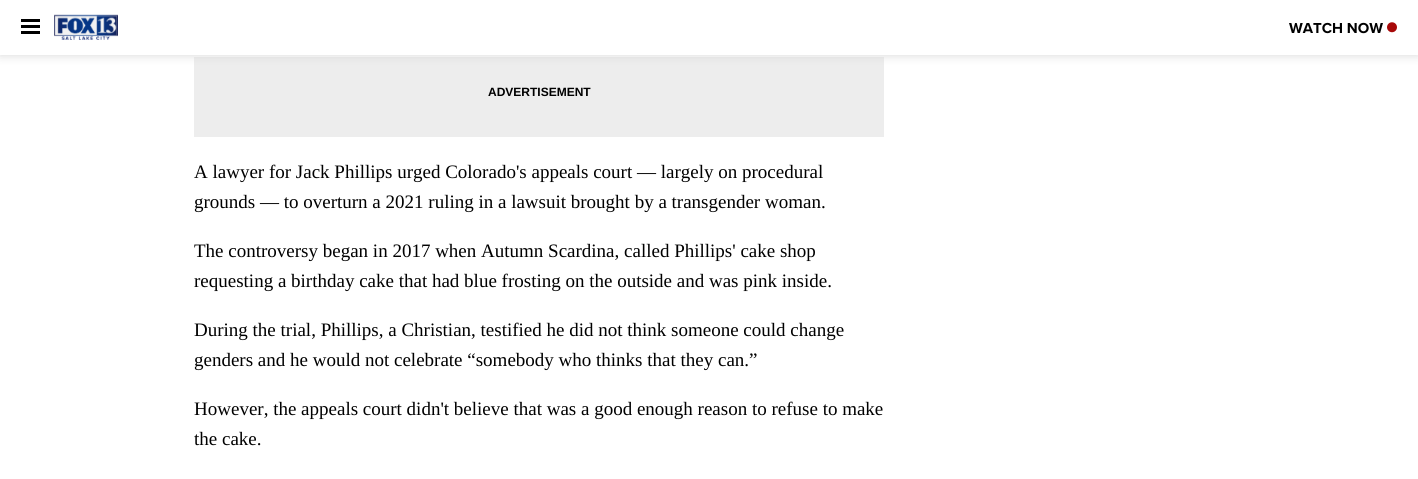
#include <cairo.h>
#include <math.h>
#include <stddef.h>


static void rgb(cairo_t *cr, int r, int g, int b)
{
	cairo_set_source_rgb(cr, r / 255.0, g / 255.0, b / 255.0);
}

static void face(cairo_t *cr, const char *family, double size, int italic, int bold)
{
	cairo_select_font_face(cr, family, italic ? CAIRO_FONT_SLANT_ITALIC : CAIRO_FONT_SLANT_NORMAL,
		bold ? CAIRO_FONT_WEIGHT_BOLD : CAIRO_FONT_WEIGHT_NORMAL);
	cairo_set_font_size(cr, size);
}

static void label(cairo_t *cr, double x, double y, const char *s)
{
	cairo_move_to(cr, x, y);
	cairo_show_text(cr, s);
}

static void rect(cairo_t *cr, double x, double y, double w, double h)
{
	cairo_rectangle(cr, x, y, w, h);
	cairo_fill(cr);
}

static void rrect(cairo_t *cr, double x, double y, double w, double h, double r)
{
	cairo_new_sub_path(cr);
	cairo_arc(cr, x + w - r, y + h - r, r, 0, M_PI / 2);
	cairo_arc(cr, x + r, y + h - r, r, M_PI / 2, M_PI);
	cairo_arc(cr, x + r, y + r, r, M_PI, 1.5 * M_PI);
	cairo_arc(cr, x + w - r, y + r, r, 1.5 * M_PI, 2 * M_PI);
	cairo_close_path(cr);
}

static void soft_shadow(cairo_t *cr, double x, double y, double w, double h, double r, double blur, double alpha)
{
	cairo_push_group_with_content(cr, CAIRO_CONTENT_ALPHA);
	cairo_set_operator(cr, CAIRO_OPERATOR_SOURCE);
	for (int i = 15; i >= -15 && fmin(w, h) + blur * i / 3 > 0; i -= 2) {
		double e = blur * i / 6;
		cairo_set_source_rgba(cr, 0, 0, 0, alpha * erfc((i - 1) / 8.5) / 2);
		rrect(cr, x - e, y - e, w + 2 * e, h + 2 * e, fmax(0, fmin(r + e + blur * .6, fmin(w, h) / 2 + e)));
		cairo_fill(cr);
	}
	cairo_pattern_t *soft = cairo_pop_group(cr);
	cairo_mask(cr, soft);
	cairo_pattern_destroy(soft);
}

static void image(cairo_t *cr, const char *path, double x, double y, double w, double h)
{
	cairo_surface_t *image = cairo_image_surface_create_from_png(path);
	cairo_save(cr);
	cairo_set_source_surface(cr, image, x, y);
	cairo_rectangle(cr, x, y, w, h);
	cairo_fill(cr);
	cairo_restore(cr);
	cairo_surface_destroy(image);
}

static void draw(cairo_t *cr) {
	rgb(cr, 255, 255, 255);
	cairo_paint(cr);
	rgb(cr, 237, 237, 237);
	rect(cr, 194, 57, 690, 80);
	cairo_save(cr);
	cairo_rectangle(cr, 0, 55, 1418, 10);
	cairo_clip(cr);
	rgb(cr, 204, 204, 204);
	soft_shadow(cr, 0, 0, 1418, 55, 0, 5, 0.8);
	cairo_restore(cr);
	rgb(cr, 0, 0, 0);
	rect(cr, 21, 19, 19, 3);
	rect(cr, 21, 25, 19, 3);
	rect(cr, 21, 31, 19, 3);
	image(cr, "image0.png", 54, 14, 64, 26);
	face(cr, "Proxima Nova", 15, 0, 1);
	label(cr, 1289, 33, "WATCH NOW");
	image(cr, "image1.png", 1387, 22, 10, 11);
	face(cr, "Liberation Sans", 12, 0, 1);
	label(cr, 488, 96, "ADVERTISEMENT");
	face(cr, "Liberation Serif", 19, 0, 0);
	label(cr, 194, 178, "A lawyer for Jack Phillips urged Colorado's appeals court — largely on procedural");
	label(cr, 194, 208, "grounds — to overturn a 2021 ruling in a lawsuit brought by a transgender woman.");
	label(cr, 194, 257, "The controversy began in 2017 when Autumn Scardina, called Phillips' cake shop");
	label(cr, 194, 287, "requesting a birthday cake that had blue frosting on the outside and was pink inside.");
	label(cr, 194, 336, "During the trial, Phillips, a Christian, testified he did not think someone could change");
	label(cr, 194, 366, "genders and he would not celebrate “somebody who thinks that they can.”");
	label(cr, 194, 415, "However, the appeals court didn't believe that was a good enough reason to refuse to make");
	label(cr, 194, 445, "the cake.");
}

int main(void) {
	cairo_surface_t *surface = cairo_image_surface_create(CAIRO_FORMAT_RGB24, 1418, 479);
	cairo_t *cr = cairo_create(surface);
	cairo_font_options_t *options = cairo_font_options_create();
	cairo_font_options_set_hint_metrics(options, CAIRO_HINT_METRICS_OFF);
	cairo_font_options_set_hint_style(options, CAIRO_HINT_STYLE_NONE);
	cairo_set_font_options(cr, options);
	cairo_set_miter_limit(cr, 4);
	draw(cr);
	cairo_surface_write_to_png(surface, "render.png");
	cairo_font_options_destroy(options);
	cairo_destroy(cr);
	cairo_surface_destroy(surface);
	return 0;
}
